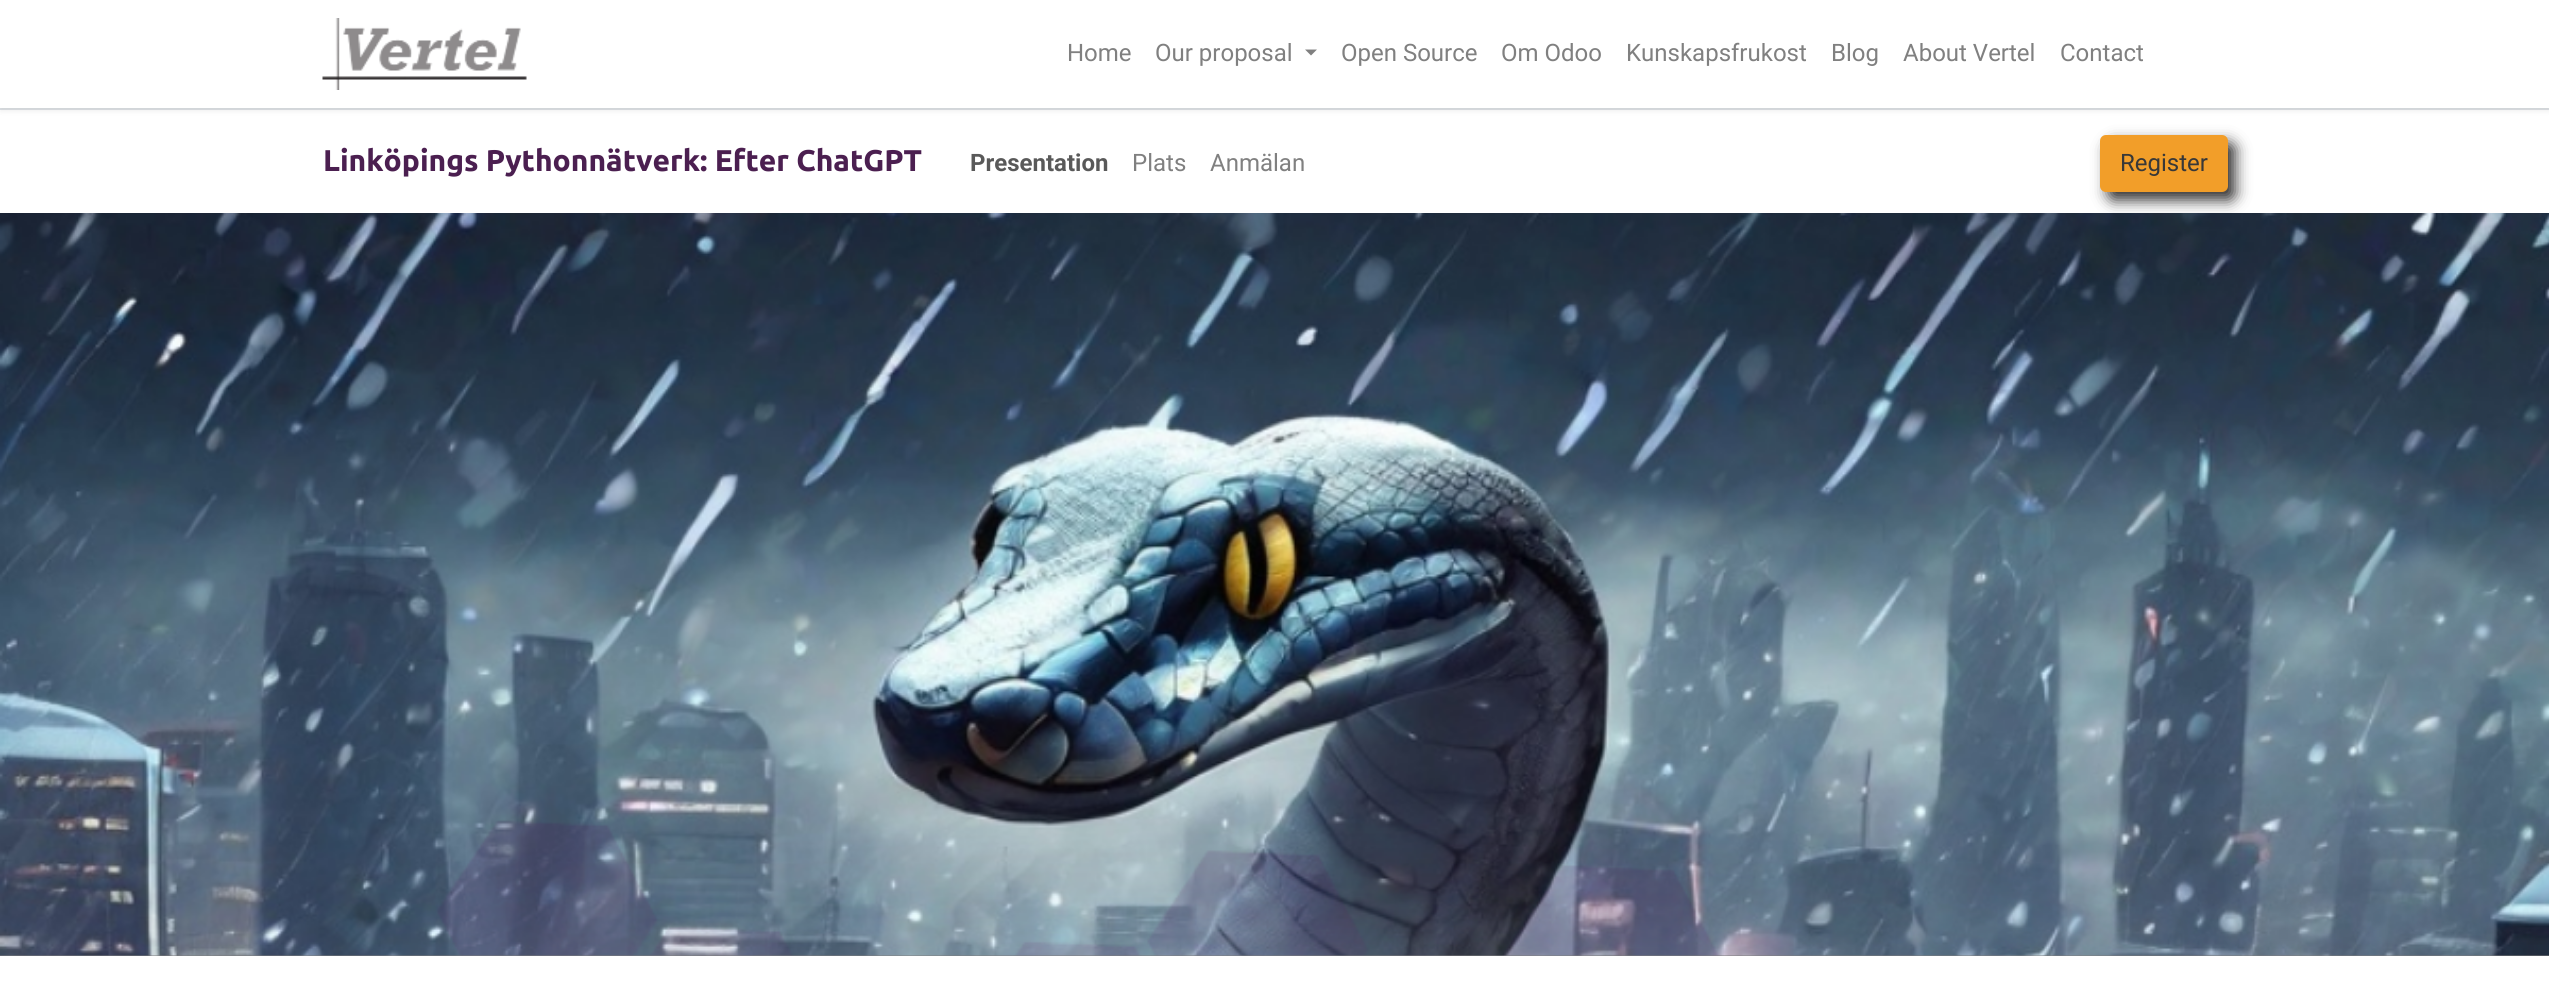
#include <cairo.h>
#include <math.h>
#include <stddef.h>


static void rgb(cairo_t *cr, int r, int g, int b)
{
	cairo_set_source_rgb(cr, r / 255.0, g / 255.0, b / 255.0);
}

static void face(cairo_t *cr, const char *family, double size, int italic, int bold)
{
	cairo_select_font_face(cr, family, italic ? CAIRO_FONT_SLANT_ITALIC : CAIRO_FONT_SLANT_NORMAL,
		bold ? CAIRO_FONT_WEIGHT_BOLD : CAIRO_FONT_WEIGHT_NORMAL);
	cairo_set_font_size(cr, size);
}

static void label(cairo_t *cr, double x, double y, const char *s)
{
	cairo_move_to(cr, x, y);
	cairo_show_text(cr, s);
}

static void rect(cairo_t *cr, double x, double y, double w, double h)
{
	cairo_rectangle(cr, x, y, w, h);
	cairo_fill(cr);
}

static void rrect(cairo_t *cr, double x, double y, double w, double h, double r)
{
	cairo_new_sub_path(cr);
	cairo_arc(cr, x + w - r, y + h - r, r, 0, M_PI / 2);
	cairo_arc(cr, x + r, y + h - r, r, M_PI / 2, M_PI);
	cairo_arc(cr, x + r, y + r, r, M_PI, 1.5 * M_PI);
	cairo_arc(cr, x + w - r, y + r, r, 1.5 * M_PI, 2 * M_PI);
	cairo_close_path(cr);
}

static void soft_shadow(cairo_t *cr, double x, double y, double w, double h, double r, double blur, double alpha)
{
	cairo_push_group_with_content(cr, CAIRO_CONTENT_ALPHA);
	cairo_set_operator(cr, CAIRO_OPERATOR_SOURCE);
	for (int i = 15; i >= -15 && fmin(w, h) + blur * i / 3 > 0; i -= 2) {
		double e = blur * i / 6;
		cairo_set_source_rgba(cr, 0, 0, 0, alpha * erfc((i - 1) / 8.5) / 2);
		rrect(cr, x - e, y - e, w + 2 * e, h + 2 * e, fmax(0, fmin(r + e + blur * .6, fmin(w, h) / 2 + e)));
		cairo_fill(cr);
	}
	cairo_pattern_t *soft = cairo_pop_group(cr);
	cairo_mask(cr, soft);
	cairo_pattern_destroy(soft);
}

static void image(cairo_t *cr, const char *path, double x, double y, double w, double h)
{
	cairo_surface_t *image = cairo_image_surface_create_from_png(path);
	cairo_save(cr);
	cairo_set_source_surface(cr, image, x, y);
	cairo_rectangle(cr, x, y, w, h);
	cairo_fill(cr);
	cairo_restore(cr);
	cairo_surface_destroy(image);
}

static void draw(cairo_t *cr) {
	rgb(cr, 255, 255, 255);
	cairo_paint(cr);
	rgb(cr, 222, 226, 230);
	rect(cr, 0, 108, 2549, 2);
	rgb(cr, 0, 0, 0);
	soft_shadow(cr, 0, 3, 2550, 108, 0, 3, 0.07);
	rgb(cr, 255, 255, 255);
	rect(cr, 0, 0, 2549, 108);
	image(cr, "image0.png", 322, 18, 205, 72);
	face(cr, "Roboto", 24, 0, 0);
	rgb(cr, 128, 128, 128);
	label(cr, 1067, 61, "Home");
	label(cr, 1155, 61, "Our proposal");
	cairo_new_path(cr);
	cairo_move_to(cr, 1305, 49.5);
	cairo_line_to(cr, 1317, 49.5);
	cairo_line_to(cr, 1311, 55.5);
	cairo_close_path(cr);
	cairo_fill(cr);
	label(cr, 1341, 61, "Open Source");
	label(cr, 1501, 61, "Om Odoo");
	label(cr, 1626, 61, "Kunskapsfrukost");
	label(cr, 1831, 61, "Blog");
	label(cr, 1903, 61, "About Vertel");
	label(cr, 2060, 61, "Contact");
	face(cr, "Ubuntu ExtraBold", 30, 0, 0);
	rgb(cr, 75, 31, 80);
	label(cr, 323, 171, "Linköpings Pythonnätverk: Efter ChatGPT");
	face(cr, "Roboto", 24, 0, 1);
	rgb(cr, 89, 89, 89);
	label(cr, 970, 171, "Presentation");
	face(cr, "Roboto", 24, 0, 0);
	rgb(cr, 128, 128, 128);
	label(cr, 1132, 171, "Plats");
	label(cr, 1210, 171, "Anmälan");
	rgb(cr, 45, 44, 44);
	soft_shadow(cr, 2108, 143, 127, 57, 6, 7.5, 1);
	rgb(cr, 242, 158, 41);
	rrect(cr, 2101, 136, 126, 55, 5);
	cairo_fill_preserve(cr);
	cairo_stroke(cr);
	rgb(cr, 56, 56, 56);
	label(cr, 2120, 171, "Register");
	cairo_set_source_rgba(cr, 0, 0, 0, 0.5);
	rect(cr, 0, 955, 2549, 1);
	image(cr, "image1.png", 0, 213, 2549, 743);
}

int main(void) {
	cairo_surface_t *surface = cairo_image_surface_create(CAIRO_FORMAT_RGB24, 2549, 986);
	cairo_t *cr = cairo_create(surface);
	cairo_font_options_t *options = cairo_font_options_create();
	cairo_font_options_set_hint_metrics(options, CAIRO_HINT_METRICS_OFF);
	cairo_font_options_set_hint_style(options, CAIRO_HINT_STYLE_NONE);
	cairo_set_font_options(cr, options);
	cairo_set_miter_limit(cr, 4);
	draw(cr);
	cairo_surface_write_to_png(surface, "render.png");
	cairo_font_options_destroy(options);
	cairo_destroy(cr);
	cairo_surface_destroy(surface);
	return 0;
}
